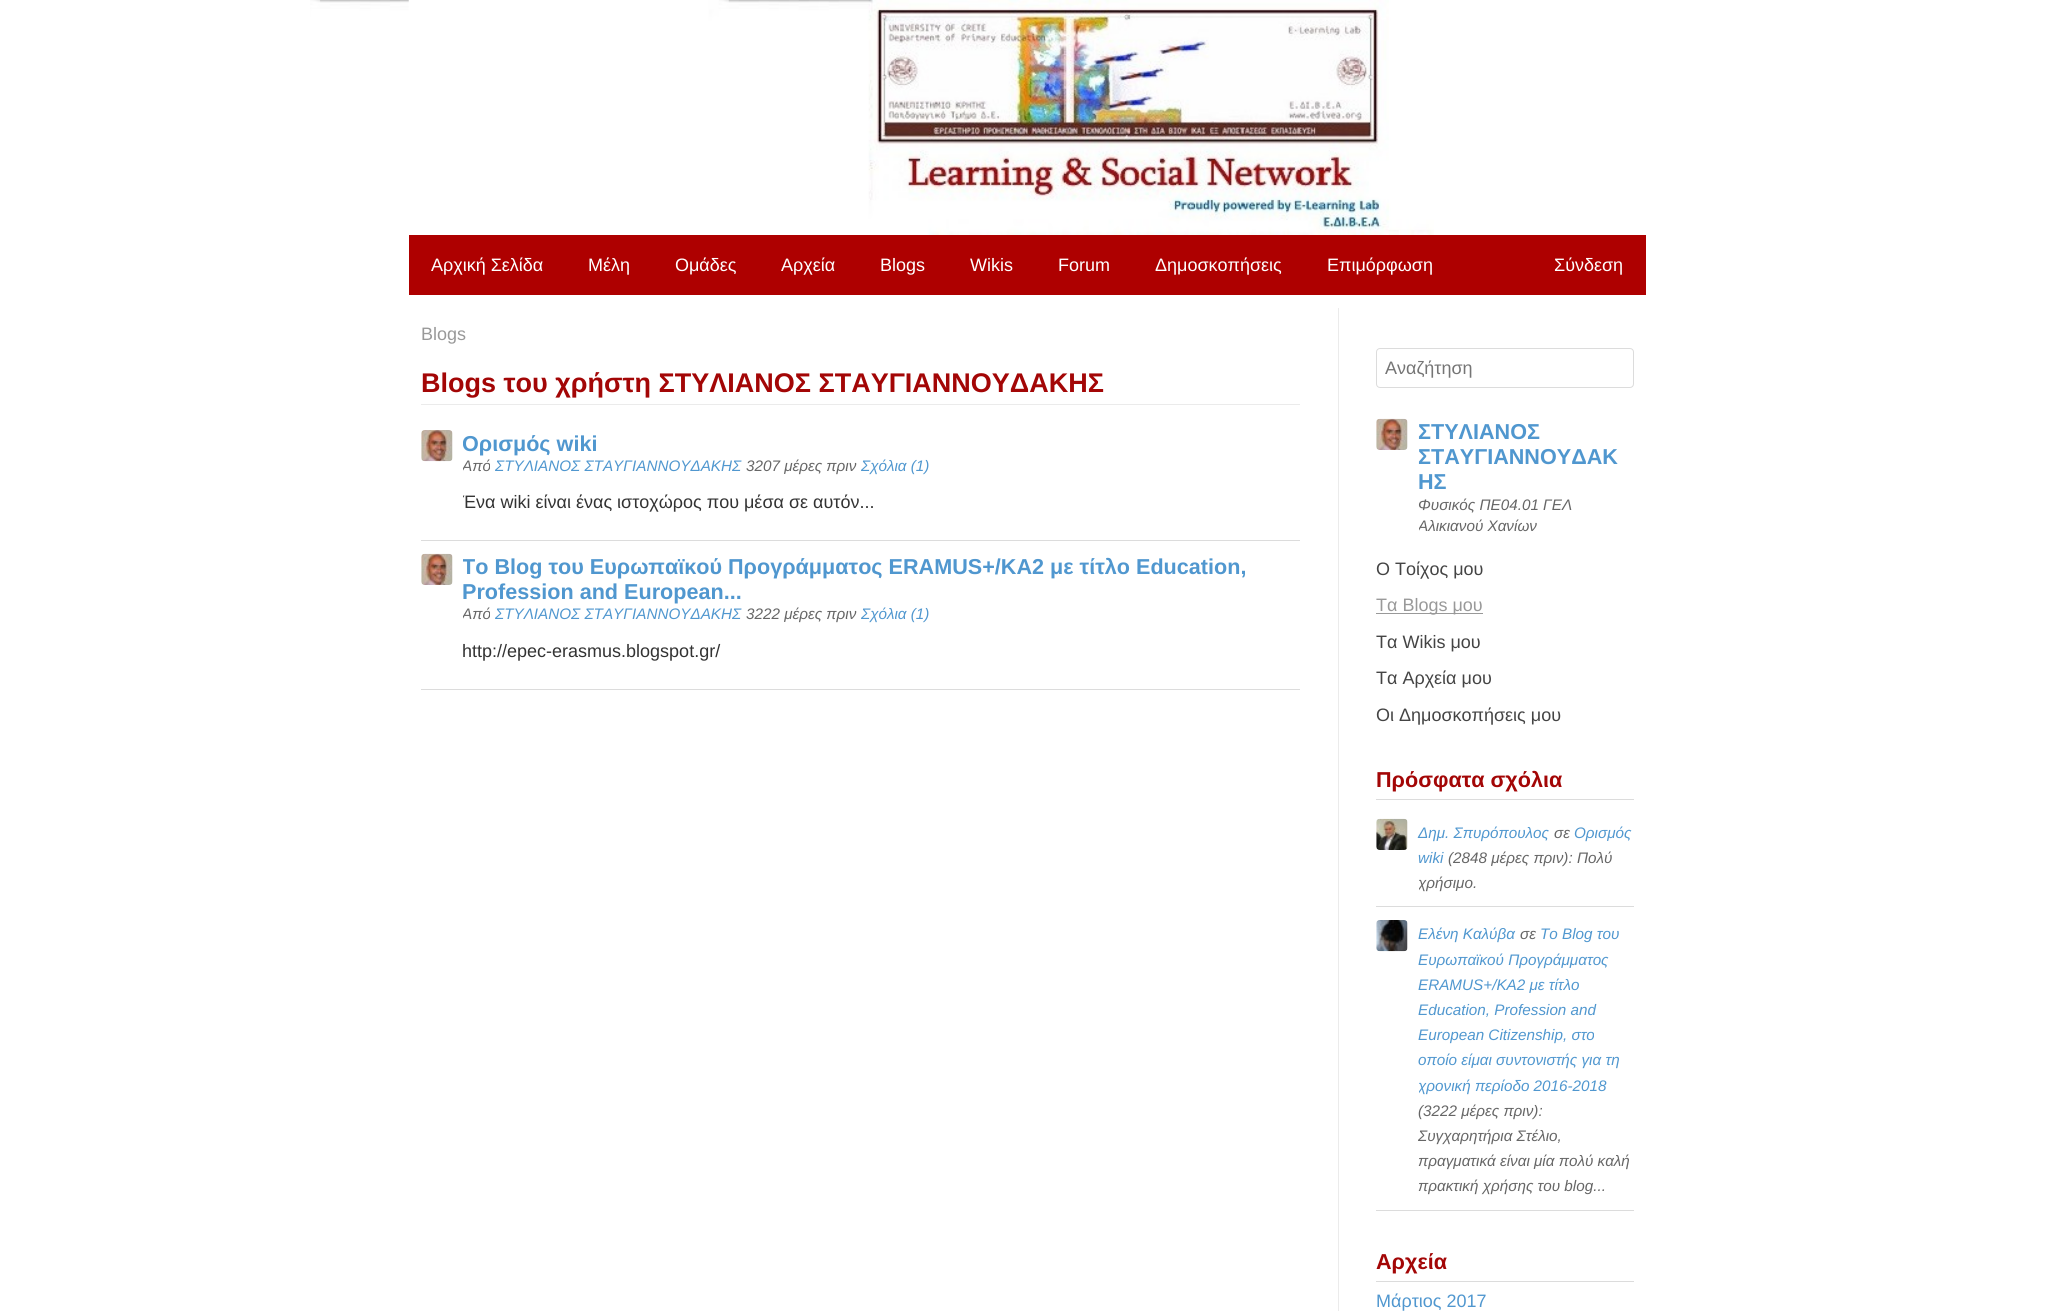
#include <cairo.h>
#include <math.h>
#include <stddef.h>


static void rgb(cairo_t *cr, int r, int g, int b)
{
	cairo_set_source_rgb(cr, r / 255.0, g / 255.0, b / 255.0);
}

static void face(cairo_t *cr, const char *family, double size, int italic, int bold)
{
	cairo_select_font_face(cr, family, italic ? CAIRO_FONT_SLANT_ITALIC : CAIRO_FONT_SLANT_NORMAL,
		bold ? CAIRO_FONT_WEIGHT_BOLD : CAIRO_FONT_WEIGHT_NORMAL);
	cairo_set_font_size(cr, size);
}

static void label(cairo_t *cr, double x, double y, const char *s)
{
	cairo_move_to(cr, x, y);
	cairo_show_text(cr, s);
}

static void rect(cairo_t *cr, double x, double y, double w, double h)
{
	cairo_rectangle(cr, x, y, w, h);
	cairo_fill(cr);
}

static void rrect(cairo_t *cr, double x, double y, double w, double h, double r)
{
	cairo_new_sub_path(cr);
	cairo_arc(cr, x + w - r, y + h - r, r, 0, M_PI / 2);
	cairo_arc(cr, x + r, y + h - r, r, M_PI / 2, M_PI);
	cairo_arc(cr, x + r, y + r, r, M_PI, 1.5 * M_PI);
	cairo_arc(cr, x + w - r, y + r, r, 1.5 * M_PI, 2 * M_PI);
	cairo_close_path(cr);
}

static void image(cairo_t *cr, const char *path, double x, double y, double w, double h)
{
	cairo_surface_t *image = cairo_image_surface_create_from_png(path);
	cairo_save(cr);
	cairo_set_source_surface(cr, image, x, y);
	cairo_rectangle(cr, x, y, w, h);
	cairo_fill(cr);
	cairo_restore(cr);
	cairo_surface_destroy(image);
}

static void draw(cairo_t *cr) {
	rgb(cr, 255, 255, 255);
	cairo_paint(cr);
	image(cr, "image0.png", 310, 0, 99, 235);
	image(cr, "image1.png", 408, 0, 1026, 235);
	rgb(cr, 174, 0, 0);
	rect(cr, 409, 235, 1237, 60);
	face(cr, "Liberation Sans", 18, 0, 0);
	rgb(cr, 255, 255, 255);
	label(cr, 431, 271, "Αρχική Σελίδα");
	label(cr, 588, 271, "Μέλη");
	label(cr, 675, 271, "Ομάδες");
	label(cr, 781, 271, "Αρχεία");
	label(cr, 880, 271, "Blogs");
	label(cr, 970, 271, "Wikis");
	label(cr, 1058, 271, "Forum");
	label(cr, 1155, 271, "Δημοσκοπήσεις");
	label(cr, 1327, 271, "Επιμόρφωση");
	label(cr, 1554, 271, "Σύνδεση");
	rgb(cr, 153, 153, 153);
	label(cr, 421, 340, "Blogs");
	rgb(cr, 235, 235, 235);
	rect(cr, 421, 404, 879, 1);
	face(cr, "Liberation Sans", 27, 0, 1);
	rgb(cr, 163, 6, 6);
	label(cr, 421, 392, "Blogs του χρήστη ΣΤΥΛΙΑΝΟΣ ΣΤΑΥΓΙΑΝΝΟΥΔΑΚΗΣ");
	rgb(cr, 220, 220, 220);
	rect(cr, 421, 540, 879, 1);
	image(cr, "image2.png", 421, 430, 32, 32);
	cairo_save(cr);
	cairo_rectangle(cr, 463, 430, 837, 98);
	cairo_clip(cr);
	face(cr, "Liberation Sans", 21.6, 0, 1);
	rgb(cr, 80, 151, 207);
	label(cr, 462, 451, "Ορισμός wiki");
	face(cr, "Liberation Sans", 15.25, 1, 0);
	rgb(cr, 102, 102, 102);
	label(cr, 462, 471, "Από");
	cairo_restore(cr);
	face(cr, "Liberation Sans", 15.25, 1, 0);
	rgb(cr, 80, 151, 207);
	label(cr, 495, 471, "ΣΤΥΛΙΑΝΟΣ ΣΤΑΥΓΙΑΝΝΟΥΔΑΚΗΣ");
	rgb(cr, 102, 102, 102);
	label(cr, 746, 471, "3207 μέρες πριν");
	rgb(cr, 80, 151, 207);
	label(cr, 861, 471, "Σχόλια (1)");
	cairo_save(cr);
	cairo_rectangle(cr, 463, 430, 837, 98);
	cairo_clip(cr);
	face(cr, "Liberation Sans", 18, 0, 0);
	rgb(cr, 51, 51, 51);
	label(cr, 462, 508, "Ένα wiki είναι ένας ιστοχώρος που μέσα σε αυτόν...");
	cairo_restore(cr);
	rgb(cr, 220, 220, 220);
	rect(cr, 421, 689, 879, 1);
	image(cr, "image3.png", 421, 553, 32, 32);
	cairo_save(cr);
	cairo_rectangle(cr, 463, 554, 837, 122);
	cairo_clip(cr);
	face(cr, "Liberation Sans", 21.6, 0, 1);
	rgb(cr, 80, 151, 207);
	label(cr, 462, 574, "Το Blog του Ευρωπαϊκού Προγράμματος ERAMUS+/KA2 με τίτλο Education,");
	cairo_restore(cr);
	face(cr, "Liberation Sans", 21.6, 0, 1);
	rgb(cr, 80, 151, 207);
	label(cr, 462, 599, "Profession and European...");
	cairo_save(cr);
	cairo_rectangle(cr, 463, 554, 837, 122);
	cairo_clip(cr);
	face(cr, "Liberation Sans", 15.25, 1, 0);
	rgb(cr, 102, 102, 102);
	label(cr, 462, 619, "Από");
	cairo_restore(cr);
	face(cr, "Liberation Sans", 15.25, 1, 0);
	label(cr, 495, 619, "ΣΤΥΛΙΑΝΟΣ ΣΤΑΥΓΙΑΝΝΟΥΔΑΚΗΣ");
	rgb(cr, 102, 102, 102);
	label(cr, 746, 619, "3222 μέρες πριν");
	rgb(cr, 80, 151, 207);
	label(cr, 861, 619, "Σχόλια (1)");
	face(cr, "Liberation Sans", 18, 0, 0);
	rgb(cr, 51, 51, 51);
	label(cr, 462, 657, "http://epec-erasmus.blogspot.gr/");
	rgb(cr, 235, 235, 235);
	rect(cr, 1338, 308, 1, 1003);
	rrect(cr, 1376.5, 348.5, 257, 39, 3.5);
	rgb(cr, 220, 220, 220);
	cairo_set_line_width(cr, 1);
	cairo_stroke(cr);
	rgb(cr, 117, 117, 117);
	label(cr, 1385, 374, "Αναζήτηση");
	image(cr, "image4.png", 1376, 418, 32, 32);
	face(cr, "Liberation Sans", 21.6, 0, 1);
	rgb(cr, 80, 151, 207);
	label(cr, 1418, 439, "ΣΤΥΛΙΑΝΟΣ");
	label(cr, 1418, 464, "ΣΤΑΥΓΙΑΝΝΟΥΔΑΚ");
	label(cr, 1418, 489, "ΗΣ");
	face(cr, "Liberation Sans", 15.25, 1, 0);
	rgb(cr, 102, 102, 102);
	label(cr, 1418, 510, "Φυσικός ΠΕ04.01 ΓΕΛ");
	cairo_save(cr);
	cairo_rectangle(cr, 1419, 419, 215, 119);
	cairo_clip(cr);
	label(cr, 1418, 531, "Αλικιανού Χανίων");
	cairo_restore(cr);
	face(cr, "Liberation Sans", 18, 0, 0);
	rgb(cr, 68, 68, 68);
	label(cr, 1376, 575, "O Τοίχος μου");
	rgb(cr, 153, 153, 153);
	rect(cr, 1376, 613, 107, 1);
	label(cr, 1376, 611, "Tα Blogs μου");
	rgb(cr, 68, 68, 68);
	label(cr, 1376, 648, "Tα Wikis μου");
	label(cr, 1376, 684, "Τα Αρχεία μου");
	label(cr, 1376, 721, "Οι Δημοσκοπήσεις μου");
	rgb(cr, 220, 220, 220);
	rect(cr, 1376, 799, 258, 1);
	face(cr, "Liberation Sans", 21.6, 0, 1);
	rgb(cr, 163, 6, 6);
	label(cr, 1376, 787, "Πρόσφατα σχόλια");
	rgb(cr, 220, 220, 220);
	rect(cr, 1376, 906, 258, 1);
	image(cr, "image5.png", 1376, 818, 32, 32);
	face(cr, "Liberation Sans", 15.25, 1, 0);
	rgb(cr, 80, 151, 207);
	label(cr, 1418, 838, "Δημ. Σπυρόπουλος");
	rgb(cr, 102, 102, 102);
	label(cr, 1554, 838, "σε");
	rgb(cr, 80, 151, 207);
	label(cr, 1574, 838, "Ορισμός");
	label(cr, 1418, 863, "wiki");
	rgb(cr, 102, 102, 102);
	label(cr, 1448, 863, "(2848 μέρες πριν): Πολύ");
	cairo_save(cr);
	cairo_rectangle(cr, 1419, 819, 215, 75);
	cairo_clip(cr);
	label(cr, 1418, 888, "χρήσιμο.");
	cairo_restore(cr);
	rgb(cr, 220, 220, 220);
	rect(cr, 1376, 1210, 258, 1);
	image(cr, "image6.png", 1376, 920, 32, 32);
	rgb(cr, 80, 151, 207);
	label(cr, 1418, 939, "Ελένη Καλύβα");
	rgb(cr, 102, 102, 102);
	label(cr, 1520, 939, "σε");
	rgb(cr, 80, 151, 207);
	label(cr, 1540, 939, "Το Blog του");
	label(cr, 1418, 965, "Ευρωπαϊκού Προγράμματος");
	label(cr, 1418, 990, "ERAMUS+/KA2 με τίτλο");
	label(cr, 1418, 1015, "Education, Profession and");
	label(cr, 1418, 1040, "European Citizenship, στο");
	label(cr, 1418, 1065, "οποίο είμαι συντονιστής για τη");
	cairo_save(cr);
	cairo_rectangle(cr, 1419, 920, 215, 278);
	cairo_clip(cr);
	label(cr, 1418, 1091, "χρονική περίοδο 2016-2018");
	cairo_restore(cr);
	rgb(cr, 102, 102, 102);
	label(cr, 1418, 1116, "(3222 μέρες πριν):");
	label(cr, 1418, 1141, "Συγχαρητήρια Στέλιο,");
	label(cr, 1418, 1166, "πραγματικά είναι μία πολύ καλή");
	label(cr, 1418, 1191, "πρακτική χρήσης του blog...");
	rgb(cr, 220, 220, 220);
	rect(cr, 1376, 1281, 258, 1);
	face(cr, "Liberation Sans", 21.6, 0, 1);
	rgb(cr, 163, 6, 6);
	label(cr, 1376, 1269, "Αρχεία");
	face(cr, "Liberation Sans", 18, 0, 0);
	rgb(cr, 80, 151, 207);
	label(cr, 1376, 1307, "Μάρτιος 2017");
}

int main(void) {
	cairo_surface_t *surface = cairo_image_surface_create(CAIRO_FORMAT_RGB24, 2053, 1311);
	cairo_t *cr = cairo_create(surface);
	cairo_font_options_t *options = cairo_font_options_create();
	cairo_font_options_set_hint_metrics(options, CAIRO_HINT_METRICS_OFF);
	cairo_font_options_set_hint_style(options, CAIRO_HINT_STYLE_NONE);
	cairo_set_font_options(cr, options);
	cairo_set_miter_limit(cr, 4);
	draw(cr);
	cairo_surface_write_to_png(surface, "render.png");
	cairo_font_options_destroy(options);
	cairo_destroy(cr);
	cairo_surface_destroy(surface);
	return 0;
}
